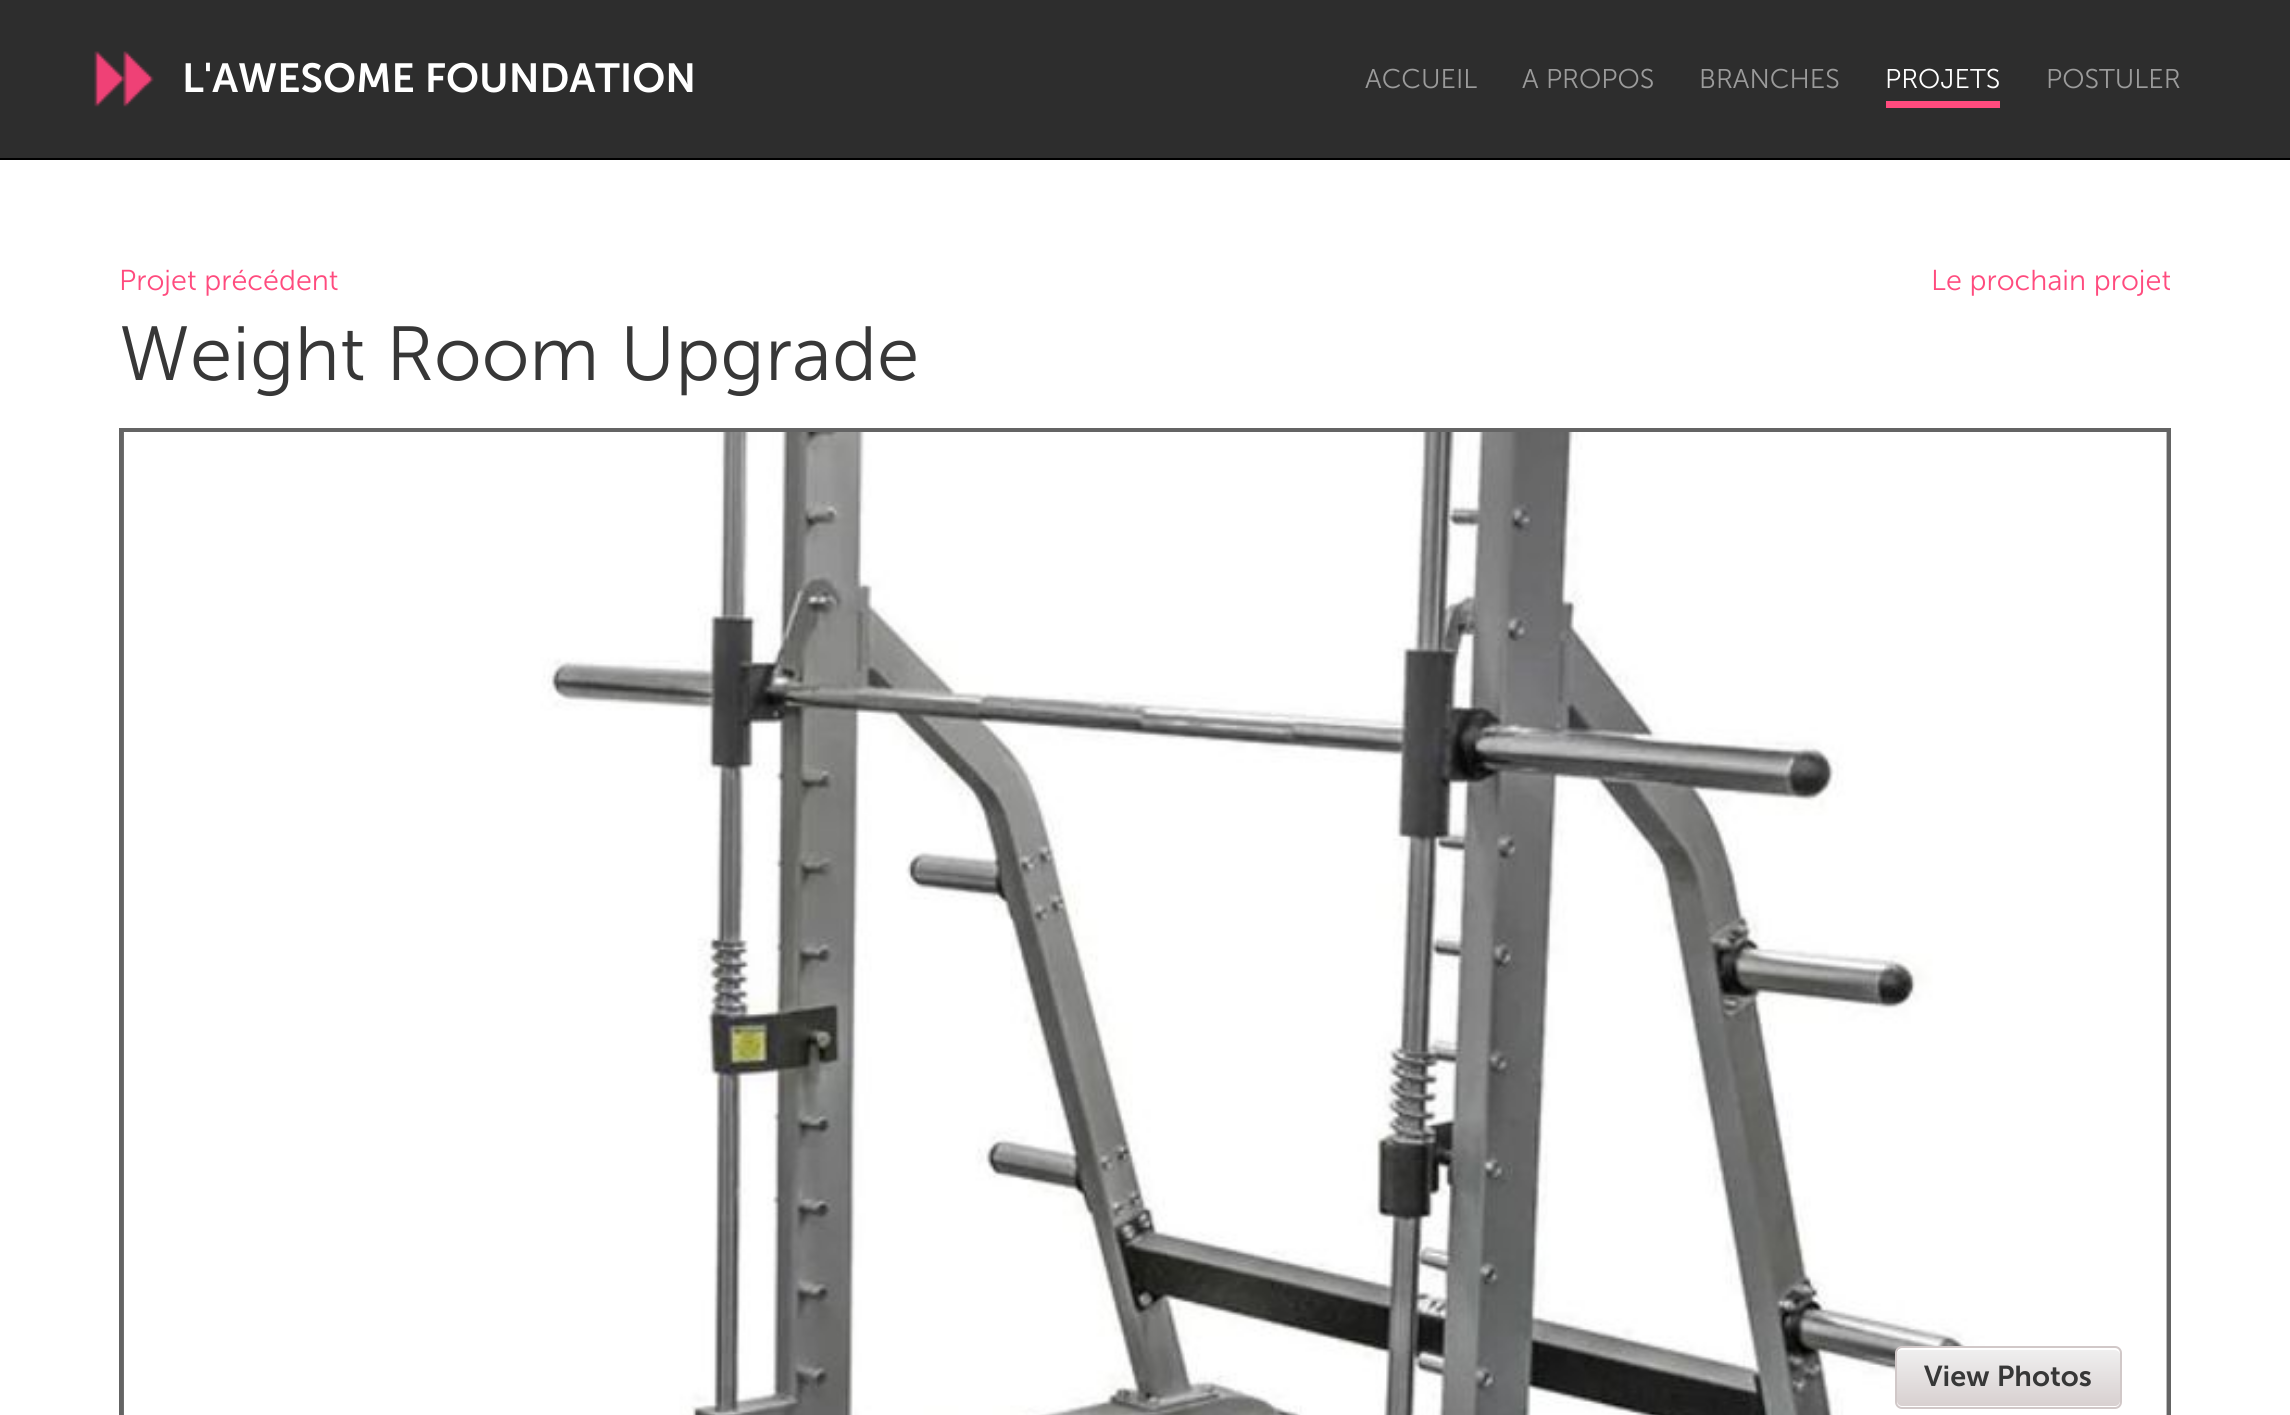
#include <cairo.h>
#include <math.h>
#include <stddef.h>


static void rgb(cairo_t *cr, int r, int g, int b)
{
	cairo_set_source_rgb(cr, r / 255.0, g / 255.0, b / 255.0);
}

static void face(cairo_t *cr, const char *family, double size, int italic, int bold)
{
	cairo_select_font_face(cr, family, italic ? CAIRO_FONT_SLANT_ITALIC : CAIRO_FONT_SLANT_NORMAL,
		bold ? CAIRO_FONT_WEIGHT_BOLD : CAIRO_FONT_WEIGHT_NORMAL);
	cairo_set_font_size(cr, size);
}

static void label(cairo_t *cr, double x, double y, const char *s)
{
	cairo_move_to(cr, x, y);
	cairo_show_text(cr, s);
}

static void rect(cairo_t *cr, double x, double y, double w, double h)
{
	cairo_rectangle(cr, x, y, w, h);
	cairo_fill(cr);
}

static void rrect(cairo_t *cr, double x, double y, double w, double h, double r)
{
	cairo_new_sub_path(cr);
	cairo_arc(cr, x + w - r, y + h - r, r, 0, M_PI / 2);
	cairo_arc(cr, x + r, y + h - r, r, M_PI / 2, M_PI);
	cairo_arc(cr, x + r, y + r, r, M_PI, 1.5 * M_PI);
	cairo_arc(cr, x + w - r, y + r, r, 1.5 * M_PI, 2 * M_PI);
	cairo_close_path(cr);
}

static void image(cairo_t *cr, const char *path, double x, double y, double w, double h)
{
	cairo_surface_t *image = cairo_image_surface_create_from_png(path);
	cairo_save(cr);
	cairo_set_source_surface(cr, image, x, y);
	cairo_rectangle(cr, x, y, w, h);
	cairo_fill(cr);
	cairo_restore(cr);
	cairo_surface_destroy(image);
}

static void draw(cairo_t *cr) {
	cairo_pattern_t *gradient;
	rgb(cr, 255, 255, 255);
	cairo_paint(cr);
	rgb(cr, 45, 45, 45);
	rect(cr, 0, 0, 2290, 158);
	rgb(cr, 0, 0, 0);
	rect(cr, 0, 158, 2290, 2);
	image(cr, "image0.png", 94, 51, 60, 56);
	face(cr, "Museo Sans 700 SemiBold", 40.5, 0, 0);
	rgb(cr, 255, 255, 255);
	label(cr, 182, 92, "L'AWESOME FOUNDATION");
	face(cr, "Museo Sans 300 Light", 27, 0, 0);
	rgb(cr, 155, 155, 155);
	label(cr, 1365, 88, "ACCUEIL");
	label(cr, 1522, 88, "A PROPOS");
	label(cr, 1699, 88, "BRANCHES");
	rgb(cr, 255, 75, 126);
	rect(cr, 1886, 101, 114, 7);
	rgb(cr, 255, 255, 255);
	label(cr, 1885, 88, "PROJETS");
	rgb(cr, 155, 155, 155);
	label(cr, 2046, 88, "POSTULER");
	face(cr, "Museo Sans 300 Light", 28.75, 0, 0);
	rgb(cr, 255, 75, 126);
	label(cr, 119, 290, "Projet précédent");
	label(cr, 1931, 290, "Le prochain projet");
	face(cr, "Museo Sans 300 Light", 76.5, 0, 0);
	rgb(cr, 55, 55, 55);
	label(cr, 119, 380, "Weight Room Upgrade");
	rgb(cr, 100, 100, 100);
	rect(cr, 119, 428, 2052, 987);
	image(cr, "image1.png", 123, 432, 2044, 983);
	gradient = cairo_pattern_create_linear(2008, 1348, 2008, 1406);
	cairo_pattern_add_color_stop_rgba(gradient, 0, 0.941, 0.941, 0.941, 1);
	cairo_pattern_add_color_stop_rgba(gradient, 1, 0.847, 0.816, 0.816, 1);
	cairo_set_source(cr, gradient);
	cairo_pattern_destroy(gradient);
	rrect(cr, 1897, 1348, 223, 58, 5);
	cairo_fill(cr);
	rgb(cr, 255, 255, 255);
	cairo_new_path(cr);
	cairo_move_to(cr, 1901, 1350);
	cairo_line_to(cr, 2115, 1350);
	cairo_curve_to(cr, 2117, 1350, 2120, 1352, 2120, 1354);
	cairo_line_to(cr, 2120, 1353);
	cairo_curve_to(cr, 2120, 1350, 2118, 1348, 2115, 1348);
	cairo_line_to(cr, 1902, 1348);
	cairo_curve_to(cr, 1899, 1348, 1897, 1350, 1897, 1353);
	cairo_line_to(cr, 1897, 1354);
	cairo_curve_to(cr, 1897, 1352, 1899, 1350, 1901, 1350);
	cairo_close_path(cr);
	cairo_fill(cr);
	rrect(cr, 1896, 1347, 225, 61, 6);
	rgb(cr, 209, 200, 200);
	cairo_stroke(cr);
	face(cr, "Museo Sans 700 SemiBold", 28.75, 0, 0);
	rgb(cr, 55, 55, 55);
	label(cr, 1924, 1386, "View Photos");
}

int main(void) {
	cairo_surface_t *surface = cairo_image_surface_create(CAIRO_FORMAT_RGB24, 2290, 1415);
	cairo_t *cr = cairo_create(surface);
	cairo_font_options_t *options = cairo_font_options_create();
	cairo_font_options_set_hint_metrics(options, CAIRO_HINT_METRICS_OFF);
	cairo_font_options_set_hint_style(options, CAIRO_HINT_STYLE_NONE);
	cairo_set_font_options(cr, options);
	cairo_set_miter_limit(cr, 4);
	draw(cr);
	cairo_surface_write_to_png(surface, "render.png");
	cairo_font_options_destroy(options);
	cairo_destroy(cr);
	cairo_surface_destroy(surface);
	return 0;
}
